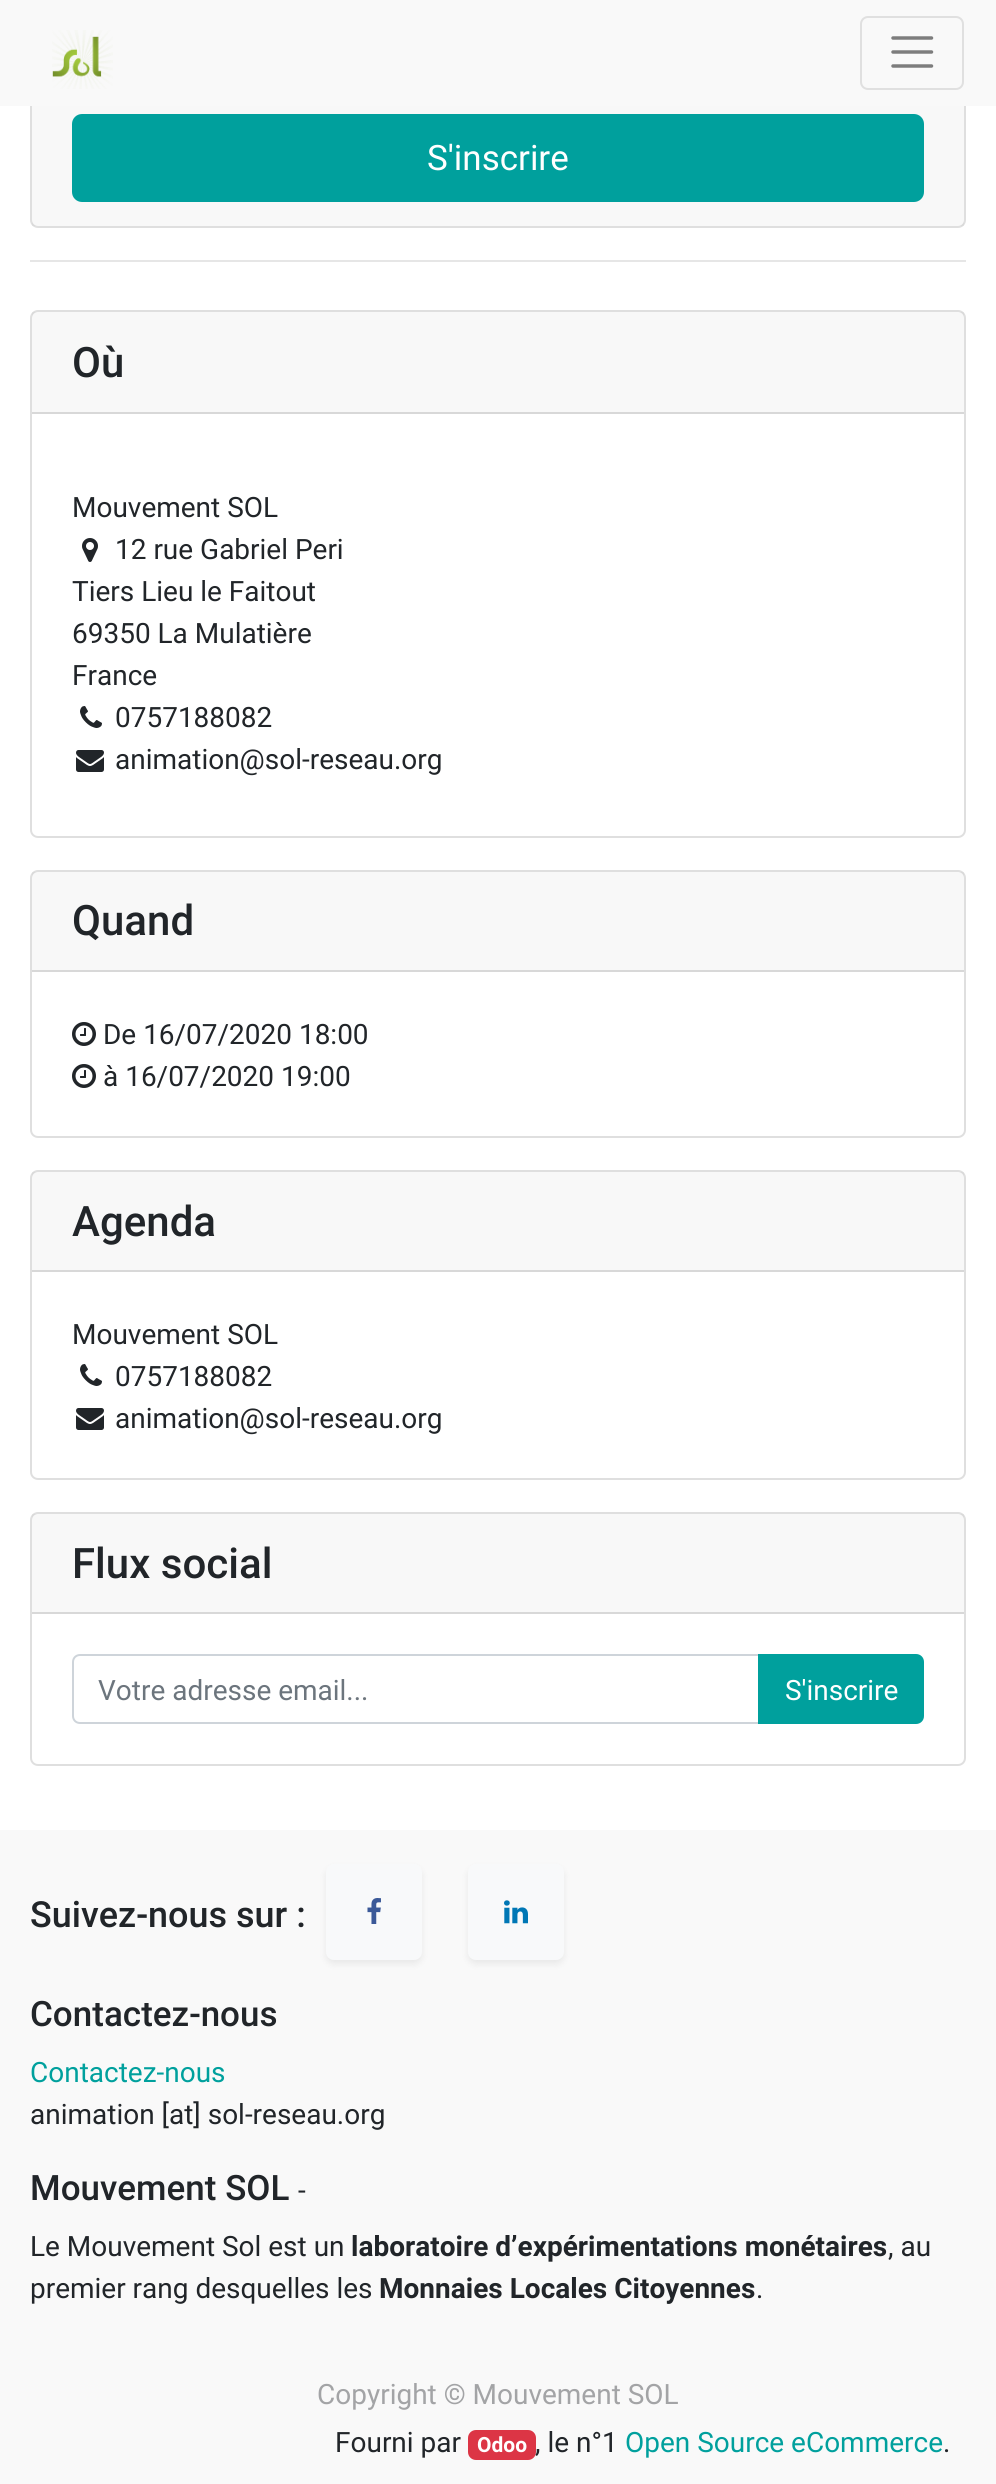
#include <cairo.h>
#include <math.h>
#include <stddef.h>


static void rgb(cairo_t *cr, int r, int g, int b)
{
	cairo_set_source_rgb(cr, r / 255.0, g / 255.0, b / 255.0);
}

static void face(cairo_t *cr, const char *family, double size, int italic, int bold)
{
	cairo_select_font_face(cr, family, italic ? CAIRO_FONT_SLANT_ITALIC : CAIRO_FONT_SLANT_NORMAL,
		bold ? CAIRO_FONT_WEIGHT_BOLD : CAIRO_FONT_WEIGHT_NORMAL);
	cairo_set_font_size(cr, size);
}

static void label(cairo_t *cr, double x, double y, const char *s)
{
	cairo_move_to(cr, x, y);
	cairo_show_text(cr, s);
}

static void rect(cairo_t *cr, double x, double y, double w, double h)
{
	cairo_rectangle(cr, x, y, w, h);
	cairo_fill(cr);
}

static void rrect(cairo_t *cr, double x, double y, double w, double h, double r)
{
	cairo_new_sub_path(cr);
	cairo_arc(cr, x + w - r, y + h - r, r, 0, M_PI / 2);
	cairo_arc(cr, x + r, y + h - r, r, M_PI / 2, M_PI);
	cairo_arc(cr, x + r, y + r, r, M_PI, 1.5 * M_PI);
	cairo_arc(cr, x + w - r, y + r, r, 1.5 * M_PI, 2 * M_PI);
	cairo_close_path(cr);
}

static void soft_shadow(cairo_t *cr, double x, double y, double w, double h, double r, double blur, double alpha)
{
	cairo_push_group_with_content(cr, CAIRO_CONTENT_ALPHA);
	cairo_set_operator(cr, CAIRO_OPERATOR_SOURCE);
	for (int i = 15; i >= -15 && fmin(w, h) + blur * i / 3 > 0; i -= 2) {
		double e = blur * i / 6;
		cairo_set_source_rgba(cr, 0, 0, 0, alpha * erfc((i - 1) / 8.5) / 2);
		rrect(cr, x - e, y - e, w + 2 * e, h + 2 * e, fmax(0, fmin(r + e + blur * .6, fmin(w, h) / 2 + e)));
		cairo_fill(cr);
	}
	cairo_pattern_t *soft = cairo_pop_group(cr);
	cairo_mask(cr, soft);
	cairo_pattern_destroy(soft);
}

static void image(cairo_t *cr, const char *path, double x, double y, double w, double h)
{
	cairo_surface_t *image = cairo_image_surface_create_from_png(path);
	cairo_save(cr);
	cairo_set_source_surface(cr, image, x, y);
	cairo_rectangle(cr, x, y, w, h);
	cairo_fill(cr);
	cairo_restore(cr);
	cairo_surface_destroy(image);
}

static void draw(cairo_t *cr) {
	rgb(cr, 255, 255, 255);
	cairo_paint(cr);
	rrect(cr, 31, -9, 934, 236, 7);
	rgb(cr, 223, 223, 223);
	cairo_stroke(cr);
	rgb(cr, 249, 249, 249);
	rect(cr, 0, 0, 996, 106);
	image(cr, "image0.png", 52, 30, 61, 59);
	rrect(cr, 861, 17, 102, 72, 7);
	rgb(cr, 224, 224, 224);
	cairo_stroke(cr);
	cairo_new_path(cr);
	cairo_move_to(cr, 893, 38);
	cairo_line_to(cr, 931.5, 38);
	cairo_move_to(cr, 893, 52);
	cairo_line_to(cr, 931.5, 52);
	cairo_move_to(cr, 893, 66);
	cairo_line_to(cr, 931.5, 66);
	rgb(cr, 125, 125, 125);
	cairo_set_line_width(cr, 3.5);
	cairo_set_line_cap(cr, CAIRO_LINE_CAP_ROUND);
	cairo_stroke(cr);
	cairo_set_source_rgba(cr, 0, 0, 0, 0.03);
	rect(cr, 32, 106, 932, 120);
	rgb(cr, 0, 160, 157);
	rrect(cr, 73, 115, 850, 86, 9);
	cairo_fill_preserve(cr);
	cairo_set_line_width(cr, 2);
	cairo_set_line_cap(cr, CAIRO_LINE_CAP_BUTT);
	cairo_stroke(cr);
	face(cr, "Roboto", 35, 0, 0);
	rgb(cr, 255, 255, 255);
	label(cr, 427, 170, "S'inscrire");
	rgb(cr, 230, 230, 230);
	rect(cr, 30, 260, 936, 2);
	rrect(cr, 31, 311, 934, 526, 7);
	rgb(cr, 223, 223, 223);
	cairo_stroke(cr);
	cairo_set_source_rgba(cr, 0, 0, 0, 0.03);
	rect(cr, 32, 312, 932, 100);
	rgb(cr, 216, 216, 216);
	rect(cr, 32, 412, 932, 2);
	face(cr, "Roboto Medium", 42, 0, 0);
	rgb(cr, 33, 37, 41);
	label(cr, 72, 377, "Où");
	face(cr, "Roboto", 28, 0, 0);
	label(cr, 72, 517, "Mouvement SOL");
	image(cr, "image1.png", 82, 538, 16, 24);
	label(cr, 115, 559, "12 rue Gabriel Peri");
	label(cr, 72, 601, "Tiers Lieu le Faitout");
	label(cr, 72, 643, "69350 La Mulatière");
	label(cr, 72, 685, "France");
	image(cr, "image2.png", 80, 706, 22, 22);
	label(cr, 115, 727, "0757188082");
	image(cr, "image3.png", 76, 750, 28, 22);
	label(cr, 115, 769, "animation@sol-reseau.org");
	rrect(cr, 31, 871, 934, 266, 7);
	rgb(cr, 223, 223, 223);
	cairo_stroke(cr);
	cairo_set_source_rgba(cr, 0, 0, 0, 0.03);
	rect(cr, 32, 872, 932, 98);
	rgb(cr, 216, 216, 216);
	rect(cr, 32, 970, 932, 2);
	face(cr, "Roboto Medium", 42, 0, 0);
	rgb(cr, 33, 37, 41);
	label(cr, 72, 935, "Quand");
	image(cr, "image4.png", 72, 1022, 24, 24);
	face(cr, "Roboto", 28, 0, 0);
	label(cr, 103, 1044, "De 16/07/2020 18:00");
	image(cr, "image4.png", 72, 1064, 24, 24);
	label(cr, 103, 1086, "à 16/07/2020 19:00");
	rrect(cr, 31, 1171, 934, 308, 7);
	rgb(cr, 223, 223, 223);
	cairo_stroke(cr);
	cairo_set_source_rgba(cr, 0, 0, 0, 0.03);
	rect(cr, 32, 1172, 932, 98);
	rgb(cr, 216, 216, 216);
	rect(cr, 32, 1270, 932, 2);
	face(cr, "Roboto Medium", 42, 0, 0);
	rgb(cr, 33, 37, 41);
	label(cr, 72, 1236, "Agenda");
	face(cr, "Roboto", 28, 0, 0);
	label(cr, 72, 1344, "Mouvement SOL");
	image(cr, "image2.png", 80, 1364, 22, 22);
	label(cr, 115, 1386, "0757188082");
	image(cr, "image3.png", 76, 1408, 28, 22);
	label(cr, 115, 1428, "animation@sol-reseau.org");
	rrect(cr, 31, 1513, 934, 252, 7);
	rgb(cr, 223, 223, 223);
	cairo_stroke(cr);
	cairo_set_source_rgba(cr, 0, 0, 0, 0.03);
	rect(cr, 32, 1514, 932, 98);
	rgb(cr, 216, 216, 216);
	rect(cr, 32, 1612, 932, 2);
	face(cr, "Roboto Medium", 42, 0, 0);
	rgb(cr, 33, 37, 41);
	label(cr, 72, 1578, "Flux social");
	cairo_new_path(cr);
	cairo_move_to(cr, 80, 1655);
	cairo_line_to(cr, 761, 1655);
	cairo_line_to(cr, 761, 1723);
	cairo_line_to(cr, 80, 1723);
	cairo_curve_to(cr, 76, 1723, 73, 1720, 73, 1716);
	cairo_line_to(cr, 73, 1662);
	cairo_curve_to(cr, 73, 1658, 76, 1655, 80, 1655);
	cairo_close_path(cr);
	rgb(cr, 206, 212, 218);
	cairo_stroke(cr);
	face(cr, "Roboto", 28, 0, 0);
	rgb(cr, 108, 117, 125);
	label(cr, 98, 1700, "Votre adresse email...");
	rgb(cr, 0, 160, 157);
	cairo_new_path(cr);
	cairo_move_to(cr, 759, 1655);
	cairo_line_to(cr, 916, 1655);
	cairo_curve_to(cr, 920, 1655, 923, 1658, 923, 1662);
	cairo_line_to(cr, 923, 1716);
	cairo_curve_to(cr, 923, 1720, 920, 1723, 916, 1723);
	cairo_line_to(cr, 759, 1723);
	cairo_close_path(cr);
	cairo_fill_preserve(cr);
	cairo_stroke(cr);
	rgb(cr, 255, 255, 255);
	label(cr, 785, 1700, "S'inscrire");
	rgb(cr, 249, 249, 249);
	rect(cr, 0, 1830, 996, 654);
	face(cr, "Roboto Medium", 36, 0, 0);
	rgb(cr, 33, 37, 41);
	label(cr, 30, 1927, "Suivez-nous sur :");
	rgb(cr, 0, 0, 0);
	soft_shadow(cr, 326, 1868, 96, 96, 8, 4, 0.07);
	rgb(cr, 248, 249, 250);
	rrect(cr, 326, 1864, 96, 96, 8);
	cairo_fill(cr);
	image(cr, "image5.png", 367, 1898, 14, 26);
	rgb(cr, 0, 0, 0);
	soft_shadow(cr, 468, 1868, 96, 96, 8, 4, 0.07);
	rgb(cr, 248, 249, 250);
	rrect(cr, 468, 1864, 96, 96, 8);
	cairo_fill(cr);
	image(cr, "image6.png", 504, 1900, 24, 24);
	face(cr, "Roboto Medium", 35, 0, 0);
	rgb(cr, 33, 37, 41);
	label(cr, 30, 2026, "Contactez-nous");
	face(cr, "Roboto", 28, 0, 0);
	rgb(cr, 0, 160, 157);
	label(cr, 30, 2082, "Contactez-nous");
	rgb(cr, 33, 37, 41);
	label(cr, 30, 2124, "animation [at] sol-reseau.org");
	face(cr, "Roboto Medium", 35, 0, 0);
	label(cr, 30, 2200, "Mouvement SOL");
	face(cr, "Roboto", 28, 0, 0);
	label(cr, 298, 2200, "-");
	label(cr, 30, 2256, "Le Mouvement Sol est un");
	face(cr, "Roboto", 28, 0, 1);
	label(cr, 351, 2256, "laboratoire d’expérimentations monétaires");
	face(cr, "Roboto", 28, 0, 0);
	label(cr, 888, 2256, ", au");
	label(cr, 30, 2298, "premier rang desquelles les");
	face(cr, "Roboto", 28, 0, 1);
	label(cr, 379, 2298, "Monnaies Locales Citoyennes");
	face(cr, "Roboto", 28, 0, 0);
	label(cr, 756, 2298, ".");
	rgb(cr, 163, 164, 166);
	label(cr, 317, 2404, "Copyright © Mouvement SOL");
	rgb(cr, 33, 37, 41);
	label(cr, 335, 2452, "Fourni par");
	rgb(cr, 220, 53, 69);
	rrect(cr, 468, 2430, 68, 30, 8);
	cairo_fill(cr);
	face(cr, "Roboto", 21, 0, 1);
	rgb(cr, 255, 255, 255);
	label(cr, 477, 2452, "Odoo");
	face(cr, "Roboto", 28, 0, 0);
	rgb(cr, 33, 37, 41);
	label(cr, 535, 2452, ", le n°1");
	rgb(cr, 0, 160, 157);
	label(cr, 625, 2452, "Open Source eCommerce");
	rgb(cr, 33, 37, 41);
	label(cr, 943, 2452, ".");
}

int main(void) {
	cairo_surface_t *surface = cairo_image_surface_create(CAIRO_FORMAT_RGB24, 996, 2484);
	cairo_t *cr = cairo_create(surface);
	cairo_font_options_t *options = cairo_font_options_create();
	cairo_font_options_set_hint_metrics(options, CAIRO_HINT_METRICS_OFF);
	cairo_font_options_set_hint_style(options, CAIRO_HINT_STYLE_NONE);
	cairo_set_font_options(cr, options);
	cairo_set_miter_limit(cr, 4);
	draw(cr);
	cairo_surface_write_to_png(surface, "render.png");
	cairo_font_options_destroy(options);
	cairo_destroy(cr);
	cairo_surface_destroy(surface);
	return 0;
}
